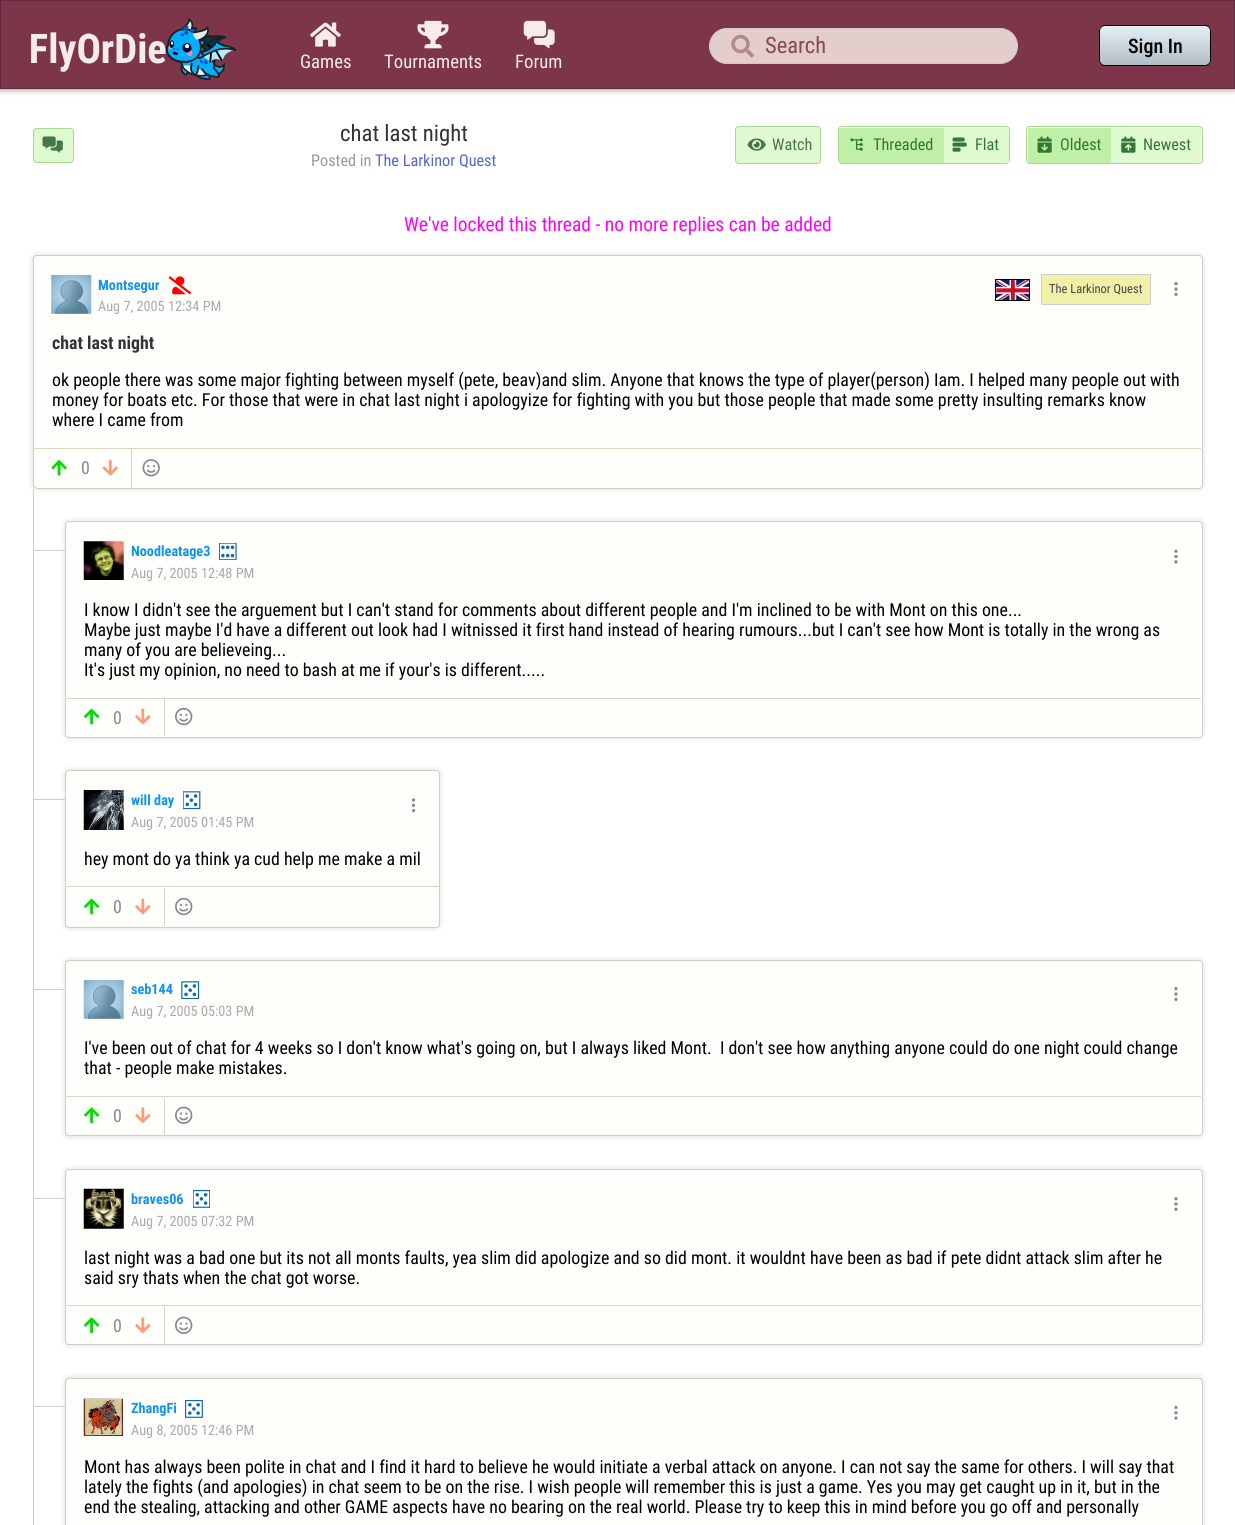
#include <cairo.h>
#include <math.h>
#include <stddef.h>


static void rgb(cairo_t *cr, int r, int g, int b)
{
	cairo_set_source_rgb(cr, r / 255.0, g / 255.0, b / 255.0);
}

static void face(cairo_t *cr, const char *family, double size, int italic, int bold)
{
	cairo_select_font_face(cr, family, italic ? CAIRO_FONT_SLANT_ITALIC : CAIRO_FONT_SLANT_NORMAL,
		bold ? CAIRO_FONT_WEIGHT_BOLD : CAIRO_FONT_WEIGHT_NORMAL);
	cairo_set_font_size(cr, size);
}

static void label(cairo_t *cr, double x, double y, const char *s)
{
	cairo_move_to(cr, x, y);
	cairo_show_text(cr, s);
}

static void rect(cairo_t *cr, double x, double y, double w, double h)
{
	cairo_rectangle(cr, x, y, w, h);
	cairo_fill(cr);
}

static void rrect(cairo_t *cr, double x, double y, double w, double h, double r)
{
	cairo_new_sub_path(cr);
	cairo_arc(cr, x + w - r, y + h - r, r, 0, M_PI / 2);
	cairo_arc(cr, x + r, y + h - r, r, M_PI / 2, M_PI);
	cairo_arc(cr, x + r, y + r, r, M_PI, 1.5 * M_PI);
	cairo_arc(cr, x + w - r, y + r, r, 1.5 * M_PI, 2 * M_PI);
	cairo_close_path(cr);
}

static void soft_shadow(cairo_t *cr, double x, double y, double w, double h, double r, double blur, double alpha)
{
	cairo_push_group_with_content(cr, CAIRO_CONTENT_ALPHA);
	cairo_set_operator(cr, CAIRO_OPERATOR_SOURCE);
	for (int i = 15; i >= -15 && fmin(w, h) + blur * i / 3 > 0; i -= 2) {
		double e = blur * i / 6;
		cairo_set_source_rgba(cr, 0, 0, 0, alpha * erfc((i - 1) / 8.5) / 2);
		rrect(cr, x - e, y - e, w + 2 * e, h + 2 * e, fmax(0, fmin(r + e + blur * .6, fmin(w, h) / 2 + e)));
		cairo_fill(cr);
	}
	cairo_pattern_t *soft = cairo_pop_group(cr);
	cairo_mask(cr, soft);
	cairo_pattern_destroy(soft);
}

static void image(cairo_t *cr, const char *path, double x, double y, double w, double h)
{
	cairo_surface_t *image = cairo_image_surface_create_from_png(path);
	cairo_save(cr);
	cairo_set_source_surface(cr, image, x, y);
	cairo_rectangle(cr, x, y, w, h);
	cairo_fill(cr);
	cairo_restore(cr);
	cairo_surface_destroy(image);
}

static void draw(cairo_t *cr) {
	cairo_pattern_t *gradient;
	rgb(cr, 255, 255, 255);
	cairo_paint(cr);
	rgb(cr, 0, 0, 0);
	soft_shadow(cr, 0, 1, 1235, 89, 0, 3, 0.4);
	rgb(cr, 125, 53, 74);
	cairo_rectangle(cr, 0.5, 0.5, 1234, 88);
	cairo_fill_preserve(cr);
	rgb(cr, 100, 42, 59);
	cairo_set_line_width(cr, 1);
	cairo_stroke(cr);
	image(cr, "image0.png", 31, 17, 206, 64);
	rgb(cr, 228, 205, 205);
	rrect(cr, 709.5, 28.5, 308, 35, 17.5);
	cairo_fill_preserve(cr);
	rgb(cr, 204, 204, 204);
	cairo_stroke(cr);
	image(cr, "image1.png", 731, 34, 23, 24);
	face(cr, "Roboto Condensed", 22.5, 0, 0);
	rgb(cr, 132, 72, 87);
	label(cr, 765, 53, "Search");
	cairo_save(cr);
	rrect(cr, 1099, 25, 112, 41, 6);
	cairo_clip(cr);
	gradient = cairo_pattern_create_linear(1155, 26, 1155, 65);
	cairo_pattern_add_color_stop_rgba(gradient, 0, 1, 1, 1, 1);
	cairo_pattern_add_color_stop_rgba(gradient, 1, 0.741, 0.741, 0.741, 1);
	cairo_set_source(cr, gradient);
	cairo_pattern_destroy(gradient);
	rect(cr, 1099, 26, 112, 39);
	cairo_restore(cr);
	cairo_set_source_rgba(cr, 0.541, 0.725, 0.859, 0.23);
	rrect(cr, 1099.5, 25.5, 111, 40, 5.5);
	cairo_fill_preserve(cr);
	rgb(cr, 0, 0, 0);
	cairo_stroke(cr);
	face(cr, "Roboto Condensed Medium", 20, 0, 0);
	label(cr, 1128, 53, "Sign In");
	image(cr, "image2.png", 310, 22, 31, 25);
	face(cr, "Roboto Condensed", 18.75, 0, 0);
	rgb(cr, 248, 235, 235);
	label(cr, 300, 68, "Games");
	image(cr, "image3.png", 417, 20, 32, 29);
	label(cr, 384, 68, "Tournaments");
	image(cr, "image4.png", 523, 20, 32, 29);
	label(cr, 515, 68, "Forum");
	rgb(cr, 223, 250, 209);
	rrect(cr, 33.5, 128.5, 40, 34, 3.5);
	cairo_fill_preserve(cr);
	rgb(cr, 166, 217, 140);
	cairo_stroke(cr);
	image(cr, "image5.png", 42, 136, 21, 17);
	face(cr, "Roboto Condensed", 22.75, 0, 0);
	rgb(cr, 51, 51, 51);
	label(cr, 340, 141, "chat last night");
	face(cr, "Roboto Condensed", 16.25, 0, 0);
	rgb(cr, 153, 153, 153);
	label(cr, 311, 166, "Posted in");
	rgb(cr, 85, 102, 221);
	label(cr, 375, 166, "The Larkinor Quest");
	rgb(cr, 223, 250, 209);
	rrect(cr, 735.5, 126.5, 85, 37, 3.5);
	cairo_fill_preserve(cr);
	rgb(cr, 166, 217, 140);
	cairo_stroke(cr);
	image(cr, "image6.png", 747, 138, 19, 13);
	rgb(cr, 68, 119, 68);
	label(cr, 772, 150, "Watch");
	rrect(cr, 838.5, 126.5, 171, 37, 3.5);
	rgb(cr, 166, 217, 140);
	cairo_stroke(cr);
	rgb(cr, 192, 240, 168);
	rect(cr, 839, 128, 105, 35);
	image(cr, "image7.png", 850, 138, 13, 13);
	rgb(cr, 51, 119, 51);
	label(cr, 873, 150, "Threaded");
	rgb(cr, 223, 250, 209);
	rect(cr, 944, 128, 65, 35);
	image(cr, "image8.png", 952, 137, 15, 15);
	rgb(cr, 51, 119, 51);
	label(cr, 975, 150, "Flat");
	rrect(cr, 1026.5, 126.5, 176, 37, 3.5);
	rgb(cr, 166, 217, 140);
	cairo_stroke(cr);
	rgb(cr, 192, 240, 168);
	rect(cr, 1028, 128, 83, 35);
	image(cr, "image9.png", 1037, 136, 15, 17);
	rgb(cr, 51, 119, 51);
	label(cr, 1060, 150, "Oldest");
	rgb(cr, 223, 250, 209);
	rect(cr, 1111, 128, 90, 35);
	image(cr, "image10.png", 1121, 136, 15, 17);
	rgb(cr, 51, 119, 51);
	label(cr, 1143, 150, "Newest");
	face(cr, "Roboto Condensed", 19.5, 0, 0);
	rgb(cr, 255, 0, 255);
	label(cr, 404, 231, "We've locked this thread - no more replies can be added");
	rgb(cr, 0, 0, 0);
	soft_shadow(cr, 31, 254, 1173, 236, 6, 2.5, 0.1);
	rgb(cr, 254, 254, 250);
	cairo_new_path(cr);
	cairo_move_to(cr, 37, 255.5);
	cairo_line_to(cr, 1199, 255.5);
	cairo_curve_to(cr, 1201, 255.5, 1202.5, 257, 1202.5, 259);
	cairo_line_to(cr, 1202.5, 485);
	cairo_curve_to(cr, 1202.5, 487, 1201, 488.5, 1199, 488.5);
	cairo_line_to(cr, 38, 488.5);
	cairo_curve_to(cr, 35.5, 488.5, 33.5, 486.5, 33.5, 484);
	cairo_line_to(cr, 33.5, 259);
	cairo_curve_to(cr, 33.5, 257, 35, 255.5, 37, 255.5);
	cairo_close_path(cr);
	cairo_fill_preserve(cr);
	rgb(cr, 207, 206, 201);
	cairo_stroke(cr);
	image(cr, "image11.png", 51, 275, 41, 39);
	face(cr, "Roboto Condensed", 14.25, 0, 1);
	rgb(cr, 13, 147, 242);
	label(cr, 98, 290, "Montsegur");
	image(cr, "image12.png", 168, 276, 24, 19);
	face(cr, "Roboto Condensed", 14.25, 0, 0);
	rgb(cr, 170, 170, 170);
	label(cr, 98, 311, "Aug 7, 2005 12:34 PM");
	image(cr, "image13.png", 996, 280, 33, 20);
	cairo_rectangle(cr, 995.5, 279.5, 34, 21);
	rgb(cr, 0, 0, 0);
	cairo_stroke(cr);
	rgb(cr, 240, 240, 168);
	cairo_rectangle(cr, 1041.5, 274.5, 109, 30);
	cairo_fill_preserve(cr);
	rgb(cr, 204, 204, 204);
	cairo_stroke(cr);
	face(cr, "Roboto Condensed", 12.5, 0, 0);
	rgb(cr, 68, 68, 68);
	label(cr, 1049, 293, "The Larkinor Quest");
	image(cr, "image14.png", 1174, 282, 4, 14);
	face(cr, "Roboto Condensed", 17.88, 0, 1);
	rgb(cr, 51, 51, 51);
	label(cr, 52, 349, "chat last night");
	face(cr, "Roboto Condensed", 17.88, 0, 0);
	rgb(cr, 0, 0, 0);
	label(cr, 52, 386, "ok people there was some major fighting between myself (pete, beav)and slim. Anyone that knows the type of player(person) Iam. I helped many people out with");
	label(cr, 52, 406, "money for boats etc. For those that were in chat last night i apologyize for fighting with you but those people that made some pretty insulting remarks know");
	label(cr, 52, 426, "where I came from");
	rgb(cr, 214, 214, 194);
	rect(cr, 34, 448, 1167, 1);
	image(cr, "image15.png", 51, 460, 16, 16);
	rgb(cr, 136, 136, 136);
	label(cr, 81, 474, "0");
	image(cr, "image16.png", 102, 460, 16, 16);
	rgb(cr, 214, 214, 194);
	rect(cr, 131, 449, 1, 39);
	image(cr, "image17.png", 142, 459, 18, 18);
	rgb(cr, 207, 206, 201);
	rect(cr, 33, 489, 1, 249);
	rgb(cr, 0, 0, 0);
	soft_shadow(cr, 64, 520, 1140, 219, 5, 2.5, 0.1);
	rgb(cr, 207, 206, 201);
	rect(cr, 33, 550, 32, 1);
	rgb(cr, 254, 254, 250);
	rrect(cr, 65.5, 521.5, 1137, 216, 3.5);
	cairo_fill_preserve(cr);
	rgb(cr, 207, 206, 201);
	cairo_stroke(cr);
	image(cr, "image18.png", 83, 541, 41, 39);
	face(cr, "Roboto Condensed", 14.25, 0, 1);
	rgb(cr, 13, 147, 242);
	label(cr, 131, 556, "Noodleatage3");
	image(cr, "image19.png", 219, 543, 18, 17);
	face(cr, "Roboto Condensed", 14.25, 0, 0);
	rgb(cr, 170, 170, 170);
	label(cr, 131, 578, "Aug 7, 2005 12:48 PM");
	image(cr, "image20.png", 1174, 549, 4, 15);
	face(cr, "Roboto Condensed", 17.88, 0, 0);
	rgb(cr, 0, 0, 0);
	label(cr, 84, 616, "I know I didn't see the arguement but I can't stand for comments about different people and I'm inclined to be with Mont on this one...");
	label(cr, 84, 636, "Maybe just maybe I'd have a different out look had I witnissed it first hand instead of hearing rumours...but I can't see how Mont is totally in the wrong as");
	label(cr, 84, 656, "many of you are believeing...");
	label(cr, 84, 676, "It's just my opinion, no need to bash at me if your's is different.....");
	rgb(cr, 214, 214, 194);
	rect(cr, 66, 698, 1135, 1);
	image(cr, "image21.png", 84, 708, 16, 17);
	rgb(cr, 136, 136, 136);
	label(cr, 113, 724, "0");
	image(cr, "image22.png", 135, 708, 16, 17);
	rgb(cr, 214, 214, 194);
	rect(cr, 164, 699, 1, 37);
	image(cr, "image23.png", 175, 707, 18, 19);
	rgb(cr, 207, 206, 201);
	rect(cr, 33, 738, 1, 190);
	rgb(cr, 0, 0, 0);
	soft_shadow(cr, 64, 769, 377, 160, 5, 2.5, 0.1);
	rgb(cr, 207, 206, 201);
	rect(cr, 33, 799, 32, 1);
	rgb(cr, 254, 254, 250);
	rrect(cr, 65.5, 770.5, 374, 157, 3.5);
	cairo_fill_preserve(cr);
	rgb(cr, 207, 206, 201);
	cairo_stroke(cr);
	image(cr, "image24.png", 83, 790, 41, 40);
	face(cr, "Roboto Condensed", 14.25, 0, 1);
	rgb(cr, 13, 147, 242);
	label(cr, 131, 805, "will day");
	image(cr, "image25.png", 183, 791, 18, 19);
	face(cr, "Roboto Condensed", 14.25, 0, 0);
	rgb(cr, 170, 170, 170);
	label(cr, 131, 827, "Aug 7, 2005 01:45 PM");
	image(cr, "image26.png", 411, 798, 5, 15);
	face(cr, "Roboto Condensed", 17.88, 0, 0);
	rgb(cr, 0, 0, 0);
	label(cr, 84, 865, "hey mont do ya think ya cud help me make a mil");
	rgb(cr, 214, 214, 194);
	rect(cr, 66, 886, 373, 1);
	image(cr, "image21.png", 84, 898, 16, 17);
	rgb(cr, 136, 136, 136);
	label(cr, 113, 913, "0");
	image(cr, "image22.png", 135, 898, 16, 17);
	rgb(cr, 214, 214, 194);
	rect(cr, 164, 888, 1, 38);
	image(cr, "image23.png", 175, 897, 18, 19);
	rgb(cr, 207, 206, 201);
	rect(cr, 33, 928, 1, 208);
	rgb(cr, 0, 0, 0);
	soft_shadow(cr, 64, 959, 1140, 179, 5, 2.5, 0.1);
	rgb(cr, 207, 206, 201);
	rect(cr, 33, 989, 32, 1);
	rgb(cr, 254, 254, 250);
	rrect(cr, 65.5, 960.5, 1137, 175, 3.5);
	cairo_fill_preserve(cr);
	rgb(cr, 207, 206, 201);
	cairo_stroke(cr);
	image(cr, "image27.png", 83, 980, 41, 39);
	face(cr, "Roboto Condensed", 14.25, 0, 1);
	rgb(cr, 13, 147, 242);
	label(cr, 131, 994, "seb144");
	image(cr, "image28.png", 181, 981, 19, 18);
	face(cr, "Roboto Condensed", 14.25, 0, 0);
	rgb(cr, 170, 170, 170);
	label(cr, 131, 1016, "Aug 7, 2005 05:03 PM");
	image(cr, "image14.png", 1174, 987, 4, 14);
	face(cr, "Roboto Condensed", 17.88, 0, 0);
	rgb(cr, 0, 0, 0);
	label(cr, 84, 1054, "I've been out of chat for 4 weeks so I don't know what's going on, but I always liked Mont.  I don't see how anything anyone could do one night could change");
	label(cr, 84, 1074, "that - people make mistakes.");
	rgb(cr, 214, 214, 194);
	rect(cr, 66, 1096, 1135, 1);
	image(cr, "image29.png", 84, 1107, 16, 17);
	rgb(cr, 136, 136, 136);
	label(cr, 113, 1122, "0");
	image(cr, "image30.png", 135, 1107, 16, 17);
	rgb(cr, 214, 214, 194);
	rect(cr, 164, 1098, 1, 37);
	image(cr, "image31.png", 175, 1106, 18, 18);
	rgb(cr, 207, 206, 201);
	rect(cr, 33, 1136, 1, 209);
	rgb(cr, 0, 0, 0);
	soft_shadow(cr, 64, 1168, 1140, 178, 5, 2.5, 0.1);
	rgb(cr, 207, 206, 201);
	rect(cr, 33, 1198, 32, 1);
	rgb(cr, 254, 254, 250);
	rrect(cr, 65.5, 1169.5, 1137, 175, 3.5);
	cairo_fill_preserve(cr);
	rgb(cr, 207, 206, 201);
	cairo_stroke(cr);
	image(cr, "image32.png", 83, 1188, 41, 41);
	face(cr, "Roboto Condensed", 14.25, 0, 1);
	rgb(cr, 13, 147, 242);
	label(cr, 131, 1204, "braves06");
	image(cr, "image33.png", 193, 1190, 17, 18);
	face(cr, "Roboto Condensed", 14.25, 0, 0);
	rgb(cr, 170, 170, 170);
	label(cr, 131, 1226, "Aug 7, 2005 07:32 PM");
	image(cr, "image14.png", 1174, 1197, 4, 14);
	face(cr, "Roboto Condensed", 17.88, 0, 0);
	rgb(cr, 0, 0, 0);
	label(cr, 84, 1264, "last night was a bad one but its not all monts faults, yea slim did apologize and so did mont. it wouldnt have been as bad if pete didnt attack slim after he");
	label(cr, 84, 1284, "said sry thats when the chat got worse.");
	rgb(cr, 214, 214, 194);
	rect(cr, 66, 1305, 1135, 1);
	image(cr, "image29.png", 84, 1317, 16, 17);
	rgb(cr, 136, 136, 136);
	label(cr, 113, 1332, "0");
	image(cr, "image30.png", 135, 1317, 16, 17);
	rgb(cr, 214, 214, 194);
	rect(cr, 164, 1306, 1, 38);
	image(cr, "image31.png", 175, 1316, 18, 18);
	rgb(cr, 207, 206, 201);
	rect(cr, 33, 1345, 1, 180);
	rgb(cr, 0, 0, 0);
	soft_shadow(cr, 64, 1376, 1140, 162, 5, 2.5, 0.1);
	rgb(cr, 207, 206, 201);
	rect(cr, 33, 1406, 32, 1);
	rgb(cr, 254, 254, 250);
	rrect(cr, 65.5, 1378.5, 1137, 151, 3.5);
	cairo_fill_preserve(cr);
	rgb(cr, 207, 206, 201);
	cairo_stroke(cr);
	image(cr, "image34.png", 83, 1398, 41, 40);
	face(cr, "Roboto Condensed", 14.25, 0, 1);
	rgb(cr, 13, 147, 242);
	label(cr, 131, 1413, "ZhangFi");
	image(cr, "image35.png", 185, 1400, 18, 18);
	face(cr, "Roboto Condensed", 14.25, 0, 0);
	rgb(cr, 170, 170, 170);
	label(cr, 131, 1435, "Aug 8, 2005 12:46 PM");
	image(cr, "image36.png", 1174, 1405, 4, 15);
	face(cr, "Roboto Condensed", 17.88, 0, 0);
	rgb(cr, 0, 0, 0);
	label(cr, 84, 1473, "Mont has always been polite in chat and I find it hard to believe he would initiate a verbal attack on anyone. I can not say the same for others. I will say that");
	label(cr, 84, 1493, "lately the fights (and apologies) in chat seem to be on the rise. I wish people will remember this is just a game. Yes you may get caught up in it, but in the");
	label(cr, 84, 1513, "end the stealing, attacking and other GAME aspects have no bearing on the real world. Please try to keep this in mind before you go off and personally");
}

int main(void) {
	cairo_surface_t *surface = cairo_image_surface_create(CAIRO_FORMAT_RGB24, 1235, 1525);
	cairo_t *cr = cairo_create(surface);
	cairo_font_options_t *options = cairo_font_options_create();
	cairo_font_options_set_hint_metrics(options, CAIRO_HINT_METRICS_OFF);
	cairo_font_options_set_hint_style(options, CAIRO_HINT_STYLE_NONE);
	cairo_set_font_options(cr, options);
	cairo_set_miter_limit(cr, 4);
	draw(cr);
	cairo_surface_write_to_png(surface, "render.png");
	cairo_font_options_destroy(options);
	cairo_destroy(cr);
	cairo_surface_destroy(surface);
	return 0;
}
